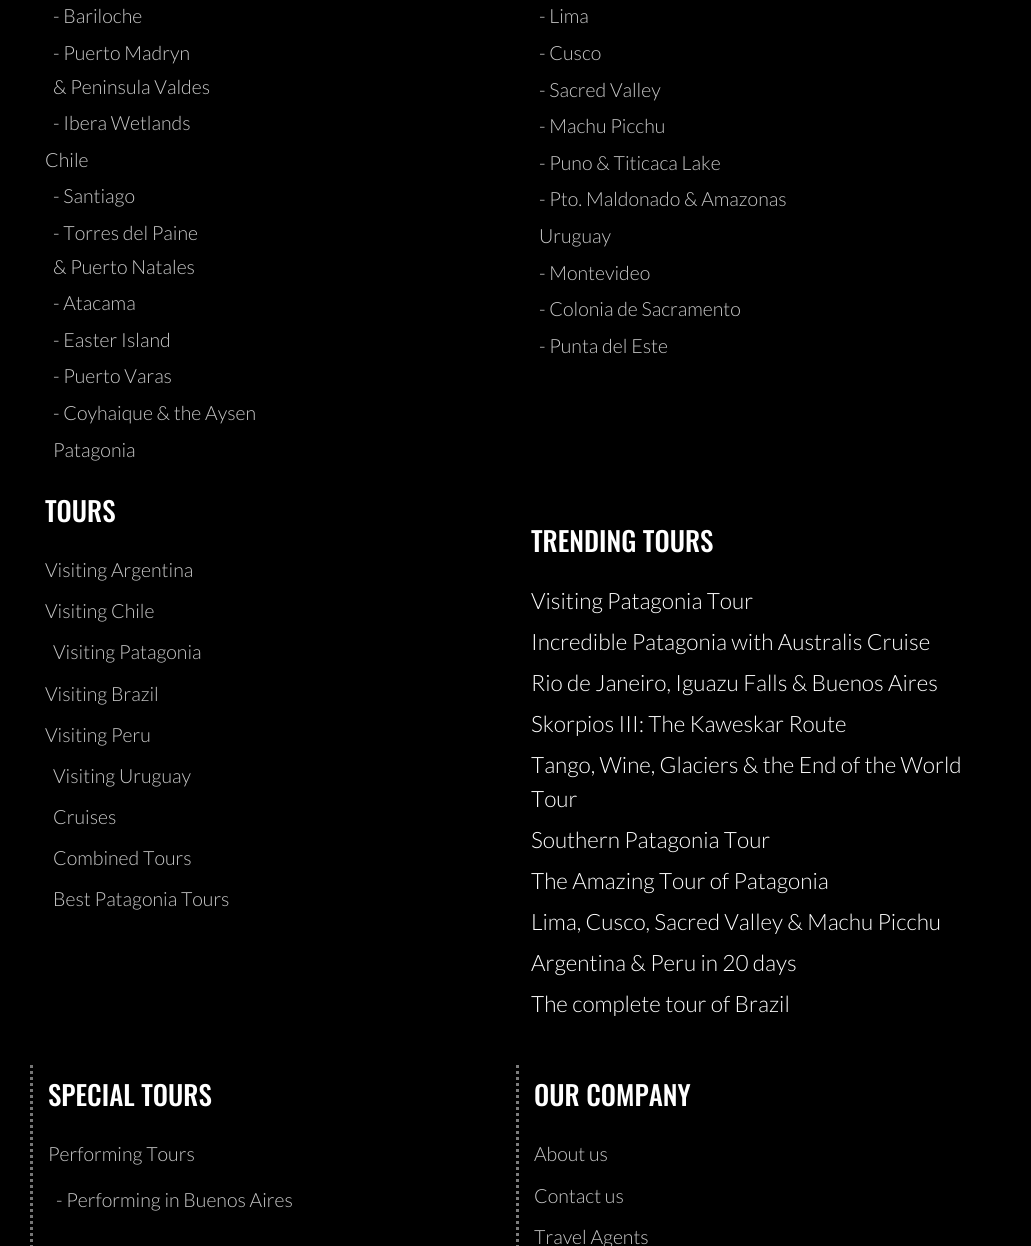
#include <cairo.h>
#include <math.h>
#include <stddef.h>


static void rgb(cairo_t *cr, int r, int g, int b)
{
	cairo_set_source_rgb(cr, r / 255.0, g / 255.0, b / 255.0);
}

static void face(cairo_t *cr, const char *family, double size, int italic, int bold)
{
	cairo_select_font_face(cr, family, italic ? CAIRO_FONT_SLANT_ITALIC : CAIRO_FONT_SLANT_NORMAL,
		bold ? CAIRO_FONT_WEIGHT_BOLD : CAIRO_FONT_WEIGHT_NORMAL);
	cairo_set_font_size(cr, size);
}

static void label(cairo_t *cr, double x, double y, const char *s)
{
	cairo_move_to(cr, x, y);
	cairo_show_text(cr, s);
}

static void draw(cairo_t *cr) {
	rgb(cr, 0, 0, 0);
	cairo_paint(cr);
	face(cr, "Lato Light", 19.5, 0, 0);
	rgb(cr, 201, 201, 201);
	label(cr, 53, 23, "- Bariloche");
	label(cr, 53, 60, "- Puerto Madryn");
	label(cr, 53, 94, "& Peninsula Valdes");
	label(cr, 53, 130, "- Ibera Wetlands");
	label(cr, 45, 167, "Chile");
	label(cr, 53, 203, "- Santiago");
	label(cr, 53, 240, "- Torres del Paine");
	label(cr, 53, 274, "& Puerto Natales");
	label(cr, 53, 310, "- Atacama");
	label(cr, 53, 347, "- Easter Island");
	label(cr, 53, 383, "- Puerto Varas");
	label(cr, 53, 420, "- Coyhaique & the Aysen");
	label(cr, 53, 457, "Patagonia");
	label(cr, 539, 23, "- Lima");
	label(cr, 539, 60, "- Cusco");
	label(cr, 539, 97, "- Sacred Valley");
	label(cr, 539, 133, "- Machu Picchu");
	label(cr, 539, 170, "- Puno & Titicaca Lake");
	label(cr, 539, 206, "- Pto. Maldonado & Amazonas");
	label(cr, 539, 243, "Uruguay");
	label(cr, 539, 280, "- Montevideo");
	label(cr, 539, 316, "- Colonia de Sacramento");
	label(cr, 539, 353, "- Punta del Este");
	face(cr, "Oswald Medium", 27, 0, 0);
	rgb(cr, 255, 255, 255);
	label(cr, 45, 522, "TOURS");
	face(cr, "Lato Light", 19.5, 0, 0);
	rgb(cr, 201, 201, 201);
	label(cr, 45, 577, "Visiting Argentina");
	label(cr, 45, 618, "Visiting Chile");
	label(cr, 53, 659, "Visiting Patagonia");
	label(cr, 45, 701, "Visiting Brazil");
	label(cr, 45, 742, "Visiting Peru");
	label(cr, 53, 783, "Visiting Uruguay");
	label(cr, 53, 824, "Cruises");
	label(cr, 53, 865, "Combined Tours");
	label(cr, 53, 906, "Best Patagonia Tours");
	face(cr, "Oswald Medium", 27, 0, 0);
	rgb(cr, 255, 255, 255);
	label(cr, 531, 552, "TRENDING TOURS");
	face(cr, "Lato Light", 22.5, 0, 0);
	label(cr, 531, 609, "Visiting Patagonia Tour");
	label(cr, 531, 650, "Incredible Patagonia with Australis Cruise");
	label(cr, 531, 691, "Rio de Janeiro, Iguazu Falls & Buenos Aires");
	label(cr, 531, 732, "Skorpios III: The Kaweskar Route");
	label(cr, 531, 773, "Tango, Wine, Glaciers & the End of the World");
	label(cr, 531, 807, "Tour");
	label(cr, 531, 848, "Southern Patagonia Tour");
	label(cr, 531, 889, "The Amazing Tour of Patagonia");
	label(cr, 531, 930, "Lima, Cusco, Sacred Valley & Machu Picchu");
	label(cr, 531, 971, "Argentina & Peru in 20 days");
	label(cr, 531, 1012, "The complete tour of Brazil");
	cairo_new_path(cr);
	cairo_move_to(cr, 31.5, 1065);
	cairo_line_to(cr, 31.5, 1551);
	rgb(cr, 118, 118, 118);
	cairo_set_line_width(cr, 3);
	cairo_set_dash(cr, (double[]){3, 3}, 2, 0);
	cairo_stroke(cr);
	face(cr, "Oswald Medium", 27, 0, 0);
	rgb(cr, 255, 255, 255);
	label(cr, 48, 1106, "SPECIAL TOURS");
	face(cr, "Lato Light", 19.5, 0, 0);
	rgb(cr, 201, 201, 201);
	label(cr, 48, 1161, "Performing Tours");
	label(cr, 56, 1207, "- Performing in Buenos Aires");
	cairo_new_path(cr);
	cairo_move_to(cr, 517.5, 1065);
	cairo_line_to(cr, 517.5, 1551);
	rgb(cr, 125, 125, 125);
	cairo_stroke(cr);
	face(cr, "Oswald Medium", 27, 0, 0);
	rgb(cr, 255, 255, 255);
	label(cr, 534, 1106, "OUR COMPANY");
	face(cr, "Lato Light", 19.5, 0, 0);
	rgb(cr, 201, 201, 201);
	label(cr, 534, 1161, "About us");
	label(cr, 534, 1203, "Contact us");
	label(cr, 534, 1244, "Travel Agents");
}

int main(void) {
	cairo_surface_t *surface = cairo_image_surface_create(CAIRO_FORMAT_RGB24, 1031, 1246);
	cairo_t *cr = cairo_create(surface);
	cairo_font_options_t *options = cairo_font_options_create();
	cairo_font_options_set_hint_metrics(options, CAIRO_HINT_METRICS_OFF);
	cairo_font_options_set_hint_style(options, CAIRO_HINT_STYLE_NONE);
	cairo_set_font_options(cr, options);
	cairo_set_miter_limit(cr, 4);
	draw(cr);
	cairo_surface_write_to_png(surface, "render.png");
	cairo_font_options_destroy(options);
	cairo_destroy(cr);
	cairo_surface_destroy(surface);
	return 0;
}
